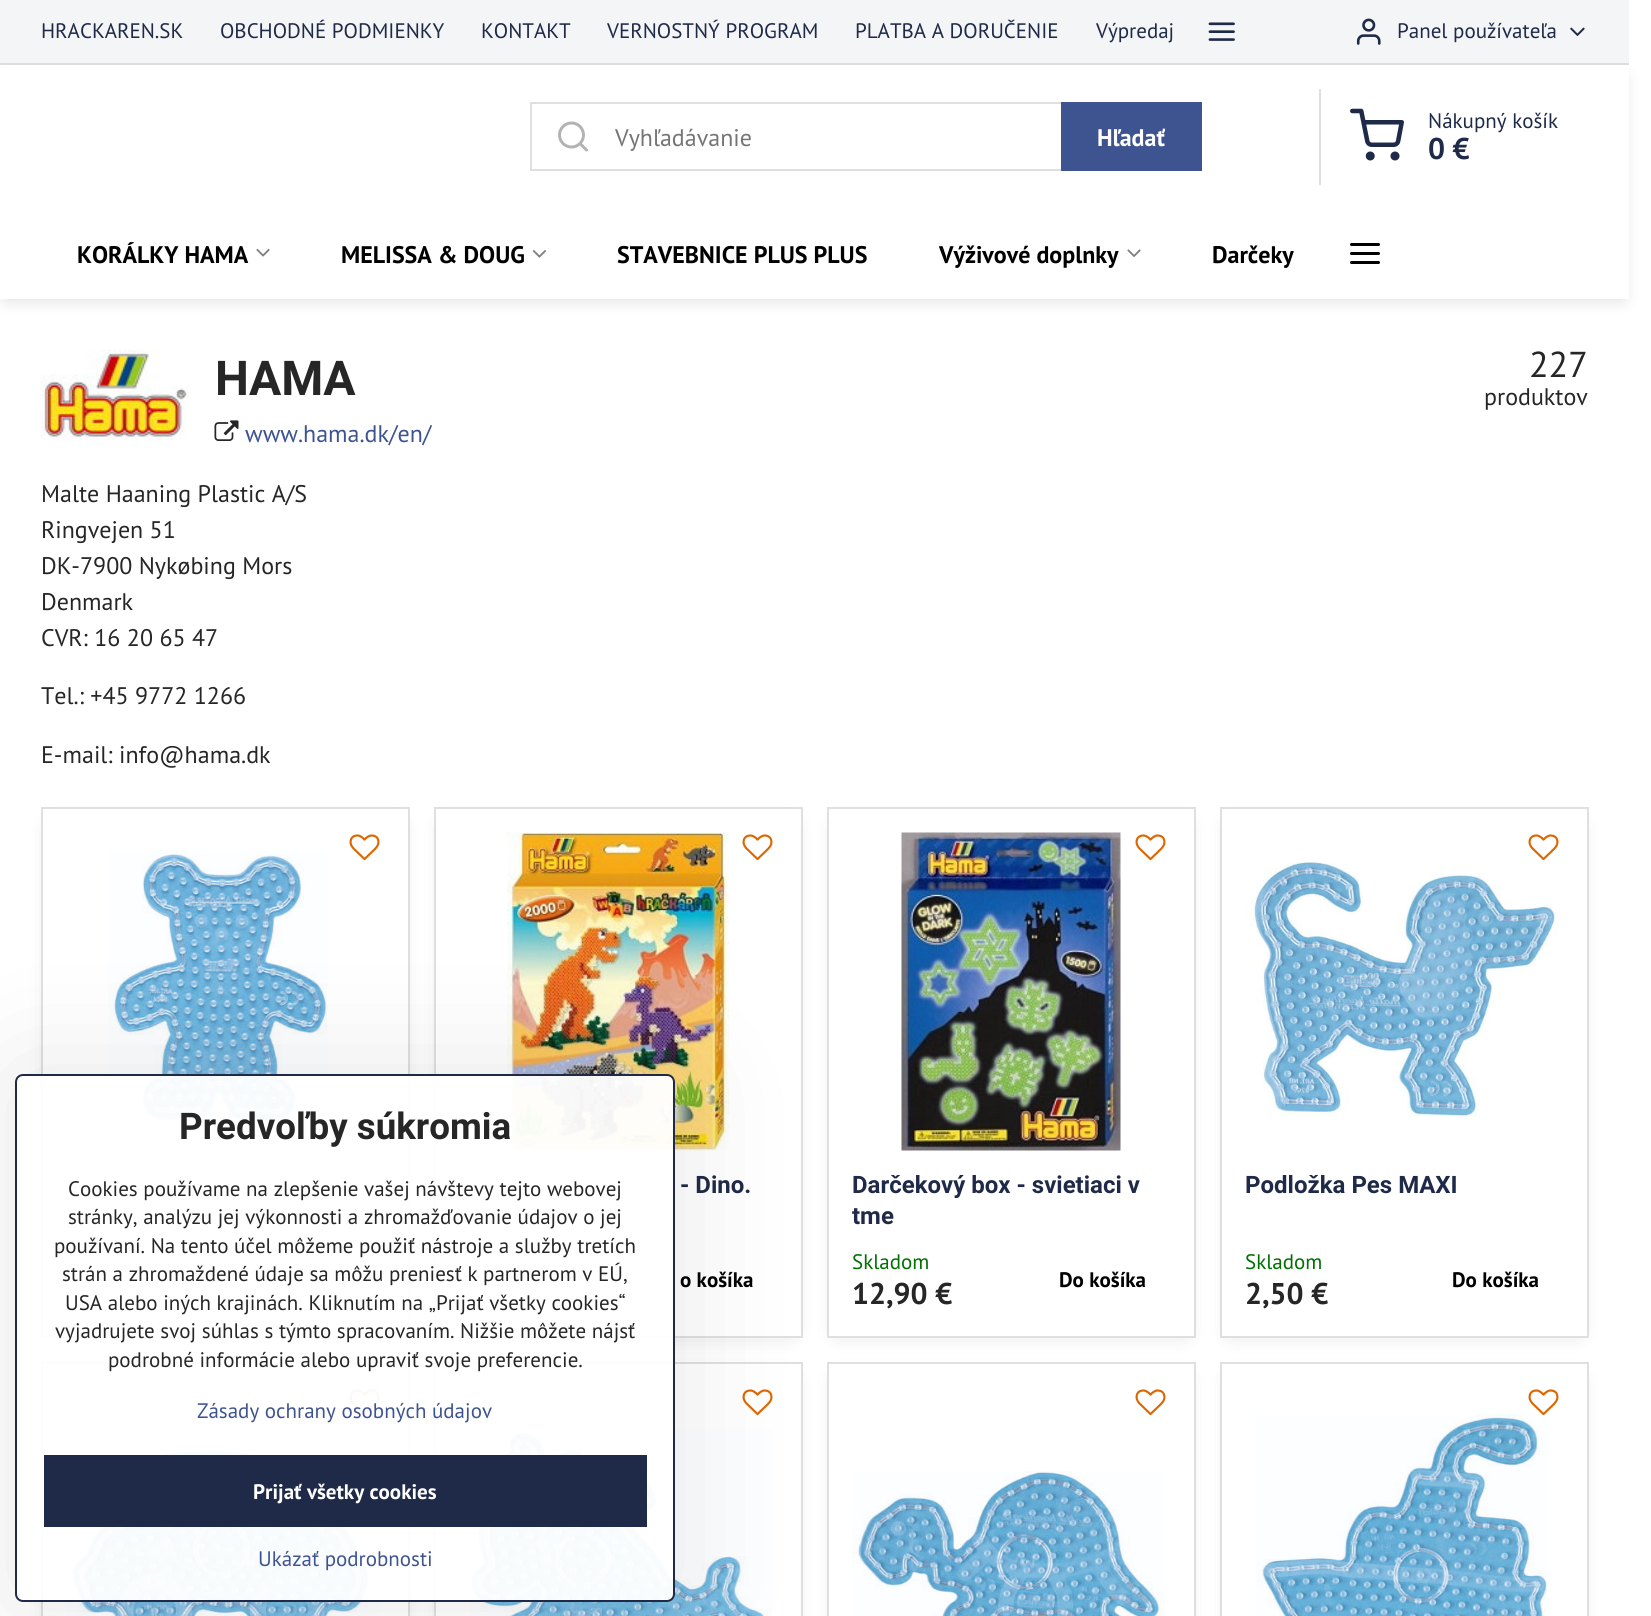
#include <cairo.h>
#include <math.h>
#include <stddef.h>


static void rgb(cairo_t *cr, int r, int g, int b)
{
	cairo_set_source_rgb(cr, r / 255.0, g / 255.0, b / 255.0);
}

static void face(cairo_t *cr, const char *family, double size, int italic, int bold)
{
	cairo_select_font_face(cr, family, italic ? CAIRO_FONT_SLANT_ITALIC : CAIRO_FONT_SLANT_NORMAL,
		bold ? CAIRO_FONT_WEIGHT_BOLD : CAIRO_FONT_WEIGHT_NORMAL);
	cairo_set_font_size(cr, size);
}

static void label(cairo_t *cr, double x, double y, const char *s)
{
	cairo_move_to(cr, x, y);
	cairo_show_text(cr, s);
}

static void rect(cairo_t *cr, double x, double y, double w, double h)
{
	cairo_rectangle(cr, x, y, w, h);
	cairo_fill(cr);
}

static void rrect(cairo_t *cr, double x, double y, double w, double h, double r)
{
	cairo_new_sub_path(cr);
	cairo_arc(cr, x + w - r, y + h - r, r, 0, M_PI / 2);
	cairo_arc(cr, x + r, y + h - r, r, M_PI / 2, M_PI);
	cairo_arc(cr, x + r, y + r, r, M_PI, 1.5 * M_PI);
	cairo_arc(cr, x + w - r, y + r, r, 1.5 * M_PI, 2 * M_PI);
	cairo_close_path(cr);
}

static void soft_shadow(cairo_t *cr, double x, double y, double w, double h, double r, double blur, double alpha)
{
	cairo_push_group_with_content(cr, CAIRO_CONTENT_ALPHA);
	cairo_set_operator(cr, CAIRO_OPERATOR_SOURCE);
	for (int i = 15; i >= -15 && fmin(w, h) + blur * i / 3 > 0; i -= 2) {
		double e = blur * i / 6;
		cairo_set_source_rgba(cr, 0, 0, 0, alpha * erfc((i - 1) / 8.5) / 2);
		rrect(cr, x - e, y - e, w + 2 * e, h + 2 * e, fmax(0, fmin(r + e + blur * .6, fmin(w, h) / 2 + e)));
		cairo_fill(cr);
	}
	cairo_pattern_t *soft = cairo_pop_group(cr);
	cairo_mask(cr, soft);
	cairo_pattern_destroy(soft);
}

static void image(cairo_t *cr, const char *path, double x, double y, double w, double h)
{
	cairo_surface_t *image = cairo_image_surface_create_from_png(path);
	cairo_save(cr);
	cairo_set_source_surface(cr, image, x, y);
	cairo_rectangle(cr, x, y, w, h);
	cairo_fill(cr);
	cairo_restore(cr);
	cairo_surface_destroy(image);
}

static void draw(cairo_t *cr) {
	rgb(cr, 255, 255, 255);
	cairo_paint(cr);
	rgb(cr, 244, 245, 246);
	rect(cr, 0, 0, 1629, 63);
	rgb(cr, 223, 223, 223);
	rect(cr, 0, 63, 1629, 2);
	face(cr, "PT Sans", 21, 0, 0);
	rgb(cr, 31, 42, 72);
	label(cr, 41, 38, "HRACKAREN.SK");
	label(cr, 220, 38, "OBCHODNÉ PODMIENKY");
	label(cr, 481, 38, "KONTAKT");
	label(cr, 607, 38, "VERNOSTNÝ PROGRAM");
	label(cr, 855, 38, "PLATBA A DORUČENIE");
	label(cr, 1096, 38, "Výpredaj");
	image(cr, "image0.png", 1208, 22, 27, 19);
	image(cr, "image1.png", 1356, 18, 25, 27);
	label(cr, 1397, 38, "Panel používateľa");
	image(cr, "image2.png", 1570, 27, 15, 9);
	rgb(cr, 0, 0, 20);
	soft_shadow(cr, 6, 77, 1617, 222, 0, 9, 0.15);
	rgb(cr, 255, 255, 255);
	rect(cr, 0, 65, 1629, 234);
	cairo_rectangle(cr, 531, 103, 670, 67);
	rgb(cr, 223, 223, 223);
	cairo_stroke(cr);
	image(cr, "image3.png", 558, 121, 30, 31);
	face(cr, "PT Sans", 24, 0, 0);
	rgb(cr, 117, 117, 117);
	label(cr, 615, 146, "Vyhľadávanie");
	rgb(cr, 62, 84, 144);
	rect(cr, 1061, 102, 141, 69);
	face(cr, "PT Sans", 24, 0, 1);
	rgb(cr, 255, 255, 255);
	label(cr, 1097, 146, "Hľadať");
	rgb(cr, 223, 223, 223);
	rect(cr, 1319, 89, 2, 96);
	image(cr, "image4.png", 1350, 108, 54, 53);
	face(cr, "PT Sans", 21, 0, 0);
	rgb(cr, 31, 42, 72);
	label(cr, 1428, 128, "Nákupný košík");
	face(cr, "PT Sans", 30, 0, 1);
	label(cr, 1428, 159, "0 €");
	face(cr, "PT Sans", 24, 0, 1);
	rgb(cr, 0, 0, 0);
	label(cr, 77, 263, "KORÁLKY HAMA");
	image(cr, "image5.png", 256, 248, 14, 9);
	label(cr, 341, 263, "MELISSA & DOUG");
	image(cr, "image6.png", 532, 250, 14, 8);
	label(cr, 617, 263, "STAVEBNICE PLUS PLUS");
	label(cr, 939, 263, "Výživové doplnky");
	image(cr, "image7.png", 1127, 249, 14, 8);
	label(cr, 1212, 263, "Darčeky");
	image(cr, "image8.png", 1350, 243, 30, 21);
	image(cr, "image9.png", 40, 349, 149, 92);
	face(cr, "Roboto", 48, 0, 1);
	rgb(cr, 38, 38, 38);
	label(cr, 215, 395, "HAMA");
	face(cr, "PT Sans", 36, 0, 0);
	label(cr, 1529, 377, "227");
	face(cr, "PT Sans", 24, 0, 0);
	label(cr, 1484, 405, "produktov");
	image(cr, "image10.png", 214, 420, 25, 21);
	rgb(cr, 62, 84, 144);
	label(cr, 245, 442, "www.hama.dk/en/");
	rgb(cr, 38, 38, 38);
	label(cr, 41, 502, "Malte Haaning Plastic A/S");
	label(cr, 41, 538, "Ringvejen 51");
	label(cr, 41, 574, "DK-7900 Nykøbing Mors");
	label(cr, 41, 610, "Denmark");
	label(cr, 41, 646, "CVR: 16 20 65 47");
	label(cr, 41, 704, "Tel.: +45 9772 1266");
	label(cr, 41, 763, "E-mail: info@hama.dk");
	rgb(cr, 0, 0, 20);
	soft_shadow(cr, 53, 825, 345, 507, 0, 12, 0.15);
	rgb(cr, 255, 255, 255);
	cairo_rectangle(cr, 42, 808, 367, 529);
	cairo_fill_preserve(cr);
	rgb(cr, 223, 223, 223);
	cairo_stroke(cr);
	image(cr, "image11.png", 108, 850, 220, 272);
	image(cr, "image12.png", 349, 834, 31, 27);
	rgb(cr, 0, 0, 20);
	soft_shadow(cr, 446, 825, 345, 507, 0, 12, 0.15);
	rgb(cr, 255, 255, 255);
	cairo_rectangle(cr, 435, 808, 367, 529);
	cairo_fill_preserve(cr);
	rgb(cr, 223, 223, 223);
	cairo_stroke(cr);
	image(cr, "image13.png", 507, 832, 222, 319);
	image(cr, "image12.png", 742, 834, 31, 27);
	face(cr, "Roboto", 24, 0, 1);
	rgb(cr, 31, 42, 72);
	label(cr, 680, 1193, "- Dino.");
	face(cr, "PT Sans", 21, 0, 1);
	rgb(cr, 0, 0, 0);
	label(cr, 680, 1287, "o košíka");
	rgb(cr, 0, 0, 20);
	soft_shadow(cr, 839, 825, 345, 507, 0, 12, 0.15);
	rgb(cr, 255, 255, 255);
	cairo_rectangle(cr, 828, 808, 367, 529);
	cairo_fill_preserve(cr);
	rgb(cr, 223, 223, 223);
	cairo_stroke(cr);
	image(cr, "image14.png", 901, 832, 220, 319);
	image(cr, "image12.png", 1135, 834, 31, 27);
	face(cr, "Roboto", 24, 0, 1);
	rgb(cr, 31, 42, 72);
	label(cr, 852, 1193, "Darčekový box - svietiaci v");
	label(cr, 852, 1224, "tme");
	face(cr, "PT Sans", 21, 0, 0);
	rgb(cr, 0, 112, 0);
	label(cr, 852, 1269, "Skladom");
	face(cr, "PT Sans", 30, 0, 1);
	rgb(cr, 38, 38, 38);
	label(cr, 852, 1304, "12,90 €");
	face(cr, "PT Sans", 21, 0, 1);
	rgb(cr, 0, 0, 0);
	label(cr, 1059, 1287, "Do košíka");
	rgb(cr, 0, 0, 20);
	soft_shadow(cr, 1232, 825, 345, 507, 0, 12, 0.15);
	rgb(cr, 255, 255, 255);
	cairo_rectangle(cr, 1221, 808, 367, 529);
	cairo_fill_preserve(cr);
	rgb(cr, 223, 223, 223);
	cairo_stroke(cr);
	image(cr, "image12.png", 1528, 834, 31, 27);
	image(cr, "image15.png", 1245, 862, 313, 255);
	face(cr, "Roboto", 24, 0, 1);
	rgb(cr, 31, 42, 72);
	label(cr, 1245, 1193, "Podložka Pes MAXI");
	face(cr, "PT Sans", 21, 0, 0);
	rgb(cr, 0, 112, 0);
	label(cr, 1245, 1269, "Skladom");
	face(cr, "PT Sans", 30, 0, 1);
	rgb(cr, 38, 38, 38);
	label(cr, 1245, 1304, "2,50 €");
	face(cr, "PT Sans", 21, 0, 1);
	rgb(cr, 0, 0, 0);
	label(cr, 1452, 1287, "Do košíka");
	rgb(cr, 0, 0, 20);
	soft_shadow(cr, 53, 1380, 345, 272, 0, 12, 0.15);
	rgb(cr, 255, 255, 255);
	cairo_rectangle(cr, 42, 1363, 367, 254);
	cairo_fill_preserve(cr);
	rgb(cr, 223, 223, 223);
	cairo_stroke(cr);
	image(cr, "image12.png", 349, 1389, 31, 27);
	image(cr, "image16.png", 66, 1450, 313, 166);
	rgb(cr, 0, 0, 20);
	soft_shadow(cr, 446, 1380, 345, 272, 0, 12, 0.15);
	rgb(cr, 255, 255, 255);
	cairo_rectangle(cr, 435, 1363, 367, 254);
	cairo_fill_preserve(cr);
	rgb(cr, 223, 223, 223);
	cairo_stroke(cr);
	image(cr, "image12.png", 742, 1389, 31, 27);
	image(cr, "image17.png", 470, 1429, 302, 187);
	rgb(cr, 0, 0, 20);
	soft_shadow(cr, 839, 1380, 345, 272, 0, 12, 0.15);
	rgb(cr, 255, 255, 255);
	cairo_rectangle(cr, 828, 1363, 367, 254);
	cairo_fill_preserve(cr);
	rgb(cr, 223, 223, 223);
	cairo_stroke(cr);
	image(cr, "image12.png", 1135, 1389, 31, 27);
	image(cr, "image18.png", 852, 1471, 313, 145);
	rgb(cr, 0, 0, 20);
	soft_shadow(cr, 1232, 1380, 345, 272, 0, 12, 0.15);
	rgb(cr, 255, 255, 255);
	cairo_rectangle(cr, 1221, 1363, 367, 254);
	cairo_fill_preserve(cr);
	rgb(cr, 223, 223, 223);
	cairo_stroke(cr);
	image(cr, "image20.png", 1256, 1414, 293, 202);
	image(cr, "image19.png", 1528, 1389, 31, 27);
	cairo_save(cr);
	cairo_set_fill_rule(cr, CAIRO_FILL_RULE_EVEN_ODD);
	cairo_new_path(cr);
	cairo_move_to(cr, 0, 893);
	cairo_line_to(cr, 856, 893);
	cairo_line_to(cr, 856, 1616);
	cairo_line_to(cr, 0, 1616);
	cairo_close_path(cr);
	cairo_move_to(cr, 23, 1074);
	cairo_line_to(cr, 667, 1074);
	cairo_curve_to(cr, 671.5, 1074, 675, 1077.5, 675, 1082);
	cairo_line_to(cr, 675, 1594);
	cairo_curve_to(cr, 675, 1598.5, 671.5, 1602, 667, 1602);
	cairo_line_to(cr, 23, 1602);
	cairo_curve_to(cr, 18.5, 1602, 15, 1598.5, 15, 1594);
	cairo_line_to(cr, 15, 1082);
	cairo_curve_to(cr, 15, 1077.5, 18.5, 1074, 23, 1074);
	cairo_close_path(cr);
	cairo_clip(cr);
	rgb(cr, 0, 0, 0);
	soft_shadow(cr, 15, 1074, 660, 528, 8, 60, 0.1);
	cairo_restore(cr);
	cairo_set_source_rgba(cr, 1, 1, 1, 0.95);
	rrect(cr, 16, 1075, 658, 526, 7);
	cairo_fill_preserve(cr);
	rgb(cr, 31, 42, 72);
	cairo_stroke(cr);
	face(cr, "Roboto", 36.75, 0, 1);
	rgb(cr, 38, 38, 38);
	label(cr, 179, 1139, "Predvoľby súkromia");
	face(cr, "PT Sans", 21, 0, 0);
	label(cr, 68, 1196, "Cookies používame na zlepšenie vašej návštevy tejto webovej");
	label(cr, 68, 1224, "stránky, analýzu jej výkonnosti a zhromažďovanie údajov o jej");
	label(cr, 54, 1253, "používaní. Na tento účel môžeme použiť nástroje a služby tretích");
	label(cr, 62, 1281, "strán a zhromaždené údaje sa môžu preniesť k partnerom v EÚ,");
	label(cr, 65, 1310, "USA alebo iných krajinách. Kliknutím na „Prijať všetky cookies“");
	label(cr, 55, 1338, "vyjadrujete svoj súhlas s týmto spracovaním. Nižšie môžete nájsť");
	label(cr, 108, 1367, "podrobné informácie alebo upraviť svoje preferencie.");
	rgb(cr, 62, 84, 144);
	label(cr, 197, 1418, "Zásady ochrany osobných údajov");
	rgb(cr, 31, 42, 72);
	rect(cr, 44, 1455, 603, 72);
	face(cr, "PT Sans", 21, 0, 1);
	rgb(cr, 255, 255, 255);
	label(cr, 253, 1499, "Prijať všetky cookies");
	face(cr, "PT Sans", 21, 0, 0);
	rgb(cr, 62, 84, 144);
	label(cr, 258, 1566, "Ukázať podrobnosti");
}

int main(void) {
	cairo_surface_t *surface = cairo_image_surface_create(CAIRO_FORMAT_RGB24, 1651, 1616);
	cairo_t *cr = cairo_create(surface);
	cairo_font_options_t *options = cairo_font_options_create();
	cairo_font_options_set_hint_metrics(options, CAIRO_HINT_METRICS_OFF);
	cairo_font_options_set_hint_style(options, CAIRO_HINT_STYLE_NONE);
	cairo_set_font_options(cr, options);
	cairo_set_miter_limit(cr, 4);
	draw(cr);
	cairo_surface_write_to_png(surface, "render.png");
	cairo_font_options_destroy(options);
	cairo_destroy(cr);
	cairo_surface_destroy(surface);
	return 0;
}
